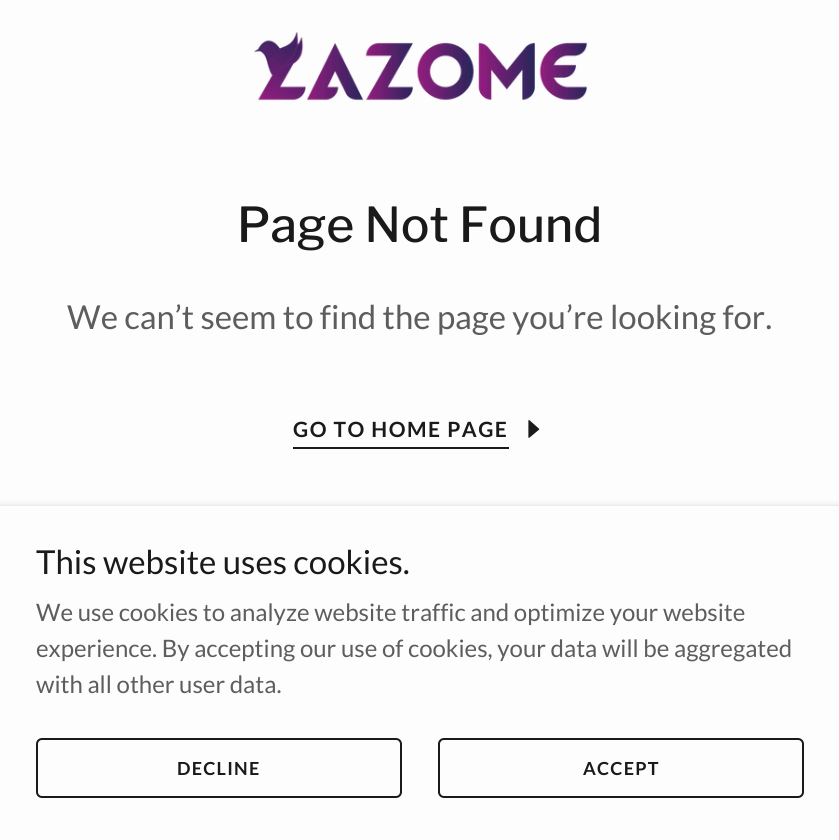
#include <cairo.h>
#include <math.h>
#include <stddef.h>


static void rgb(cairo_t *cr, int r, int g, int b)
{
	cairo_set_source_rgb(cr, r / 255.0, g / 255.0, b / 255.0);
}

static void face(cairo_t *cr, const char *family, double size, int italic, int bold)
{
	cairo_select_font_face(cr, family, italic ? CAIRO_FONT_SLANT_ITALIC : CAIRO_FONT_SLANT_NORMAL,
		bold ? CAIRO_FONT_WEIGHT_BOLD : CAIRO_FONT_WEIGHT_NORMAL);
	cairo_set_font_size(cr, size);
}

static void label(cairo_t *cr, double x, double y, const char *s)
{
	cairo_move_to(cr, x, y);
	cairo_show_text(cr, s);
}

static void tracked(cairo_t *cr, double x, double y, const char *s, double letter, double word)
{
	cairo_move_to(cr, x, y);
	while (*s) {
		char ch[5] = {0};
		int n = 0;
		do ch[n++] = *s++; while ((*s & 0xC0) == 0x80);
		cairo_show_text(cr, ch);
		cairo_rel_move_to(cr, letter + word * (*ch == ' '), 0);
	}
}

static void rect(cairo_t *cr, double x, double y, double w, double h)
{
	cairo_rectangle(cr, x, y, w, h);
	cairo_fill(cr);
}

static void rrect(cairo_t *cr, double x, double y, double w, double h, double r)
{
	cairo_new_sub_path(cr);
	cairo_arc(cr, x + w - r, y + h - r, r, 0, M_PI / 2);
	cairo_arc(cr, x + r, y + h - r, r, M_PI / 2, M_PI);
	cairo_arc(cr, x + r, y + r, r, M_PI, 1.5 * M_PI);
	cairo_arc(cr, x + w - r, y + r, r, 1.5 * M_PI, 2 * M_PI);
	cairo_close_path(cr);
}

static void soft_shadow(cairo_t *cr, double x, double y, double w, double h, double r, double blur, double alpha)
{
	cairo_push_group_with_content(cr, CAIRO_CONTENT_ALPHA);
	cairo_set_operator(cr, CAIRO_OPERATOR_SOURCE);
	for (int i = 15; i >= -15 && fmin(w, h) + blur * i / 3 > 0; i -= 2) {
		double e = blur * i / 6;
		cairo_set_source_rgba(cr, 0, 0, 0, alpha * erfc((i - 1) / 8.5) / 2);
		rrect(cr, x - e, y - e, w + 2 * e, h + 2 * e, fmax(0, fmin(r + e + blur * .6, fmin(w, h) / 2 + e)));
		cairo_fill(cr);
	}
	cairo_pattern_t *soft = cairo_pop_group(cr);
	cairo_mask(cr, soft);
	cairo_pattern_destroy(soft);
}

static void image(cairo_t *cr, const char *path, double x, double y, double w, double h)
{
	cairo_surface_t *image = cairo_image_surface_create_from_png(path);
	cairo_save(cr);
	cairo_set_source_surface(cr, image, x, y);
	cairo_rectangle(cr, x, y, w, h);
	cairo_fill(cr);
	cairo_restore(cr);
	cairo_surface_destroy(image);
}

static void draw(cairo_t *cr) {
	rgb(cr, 253, 253, 253);
	cairo_paint(cr);
	image(cr, "image0.png", 254, 32, 334, 69);
	face(cr, "Libre Franklin Thin", 48, 0, 0);
	rgb(cr, 26, 26, 26);
	label(cr, 237, 242, "Page Not Found");
	face(cr, "Lato", 33, 0, 0);
	rgb(cr, 93, 93, 93);
	label(cr, 67, 329, "We can’t seem to find the page you’re looking for.");
	rgb(cr, 26, 26, 26);
	rect(cr, 293, 447, 216, 2);
	face(cr, "Lato", 21, 0, 1);
	tracked(cr, 293, 437, "GO TO HOME PAGE", 1.5, 0);
	image(cr, "image1.png", 528, 420, 12, 18);
	rgb(cr, 0, 0, 0);
	soft_shadow(cr, 0, 509, 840, 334, 0, 4.5, 0.3);
	rgb(cr, 253, 253, 253);
	rect(cr, 0, 506, 839, 334);
	face(cr, "Lato", 33, 0, 0);
	rgb(cr, 26, 26, 26);
	label(cr, 36, 574, "This website uses cookies.");
	face(cr, "Lato", 24, 0, 0);
	rgb(cr, 93, 93, 93);
	label(cr, 36, 621, "We use cookies to analyze website traffic and optimize your website");
	label(cr, 36, 657, "experience. By accepting our use of cookies, your data will be aggregated");
	label(cr, 36, 693, "with all other user data.");
	rrect(cr, 37, 739, 364, 58, 5);
	rgb(cr, 26, 26, 26);
	cairo_stroke(cr);
	face(cr, "Lato", 18, 0, 1);
	tracked(cr, 177, 775, "DECLINE", 1.25, 0);
	rrect(cr, 439, 739, 364, 58, 5);
	cairo_stroke(cr);
	tracked(cr, 583, 775, "ACCEPT", 1.25, 0);
}

int main(void) {
	cairo_surface_t *surface = cairo_image_surface_create(CAIRO_FORMAT_RGB24, 839, 840);
	cairo_t *cr = cairo_create(surface);
	cairo_font_options_t *options = cairo_font_options_create();
	cairo_font_options_set_hint_metrics(options, CAIRO_HINT_METRICS_OFF);
	cairo_font_options_set_hint_style(options, CAIRO_HINT_STYLE_NONE);
	cairo_set_font_options(cr, options);
	cairo_set_miter_limit(cr, 4);
	draw(cr);
	cairo_surface_write_to_png(surface, "render.png");
	cairo_font_options_destroy(options);
	cairo_destroy(cr);
	cairo_surface_destroy(surface);
	return 0;
}
